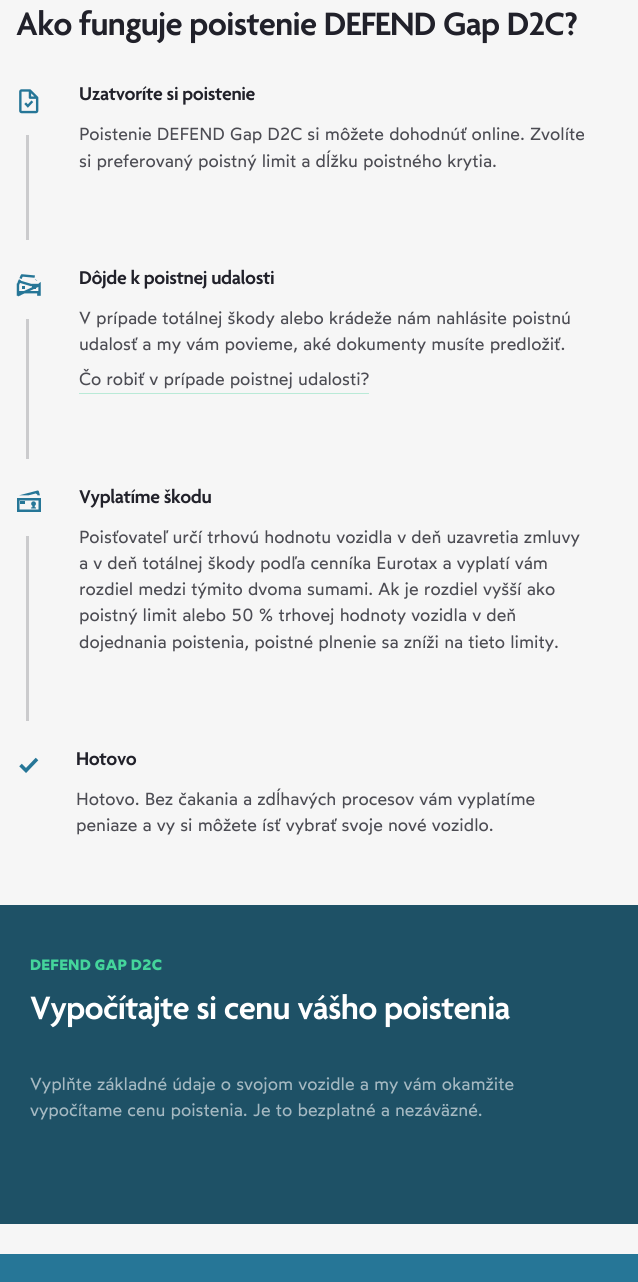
#include <cairo.h>
#include <math.h>
#include <stddef.h>


static void rgb(cairo_t *cr, int r, int g, int b)
{
	cairo_set_source_rgb(cr, r / 255.0, g / 255.0, b / 255.0);
}

static void face(cairo_t *cr, const char *family, double size, int italic, int bold)
{
	cairo_select_font_face(cr, family, italic ? CAIRO_FONT_SLANT_ITALIC : CAIRO_FONT_SLANT_NORMAL,
		bold ? CAIRO_FONT_WEIGHT_BOLD : CAIRO_FONT_WEIGHT_NORMAL);
	cairo_set_font_size(cr, size);
}

static void label(cairo_t *cr, double x, double y, const char *s)
{
	cairo_move_to(cr, x, y);
	cairo_show_text(cr, s);
}

static void tracked(cairo_t *cr, double x, double y, const char *s, double letter, double word)
{
	cairo_move_to(cr, x, y);
	while (*s) {
		char ch[5] = {0};
		int n = 0;
		do ch[n++] = *s++; while ((*s & 0xC0) == 0x80);
		cairo_show_text(cr, ch);
		cairo_rel_move_to(cr, letter + word * (*ch == ' '), 0);
	}
}

static void rect(cairo_t *cr, double x, double y, double w, double h)
{
	cairo_rectangle(cr, x, y, w, h);
	cairo_fill(cr);
}

static void image(cairo_t *cr, const char *path, double x, double y, double w, double h)
{
	cairo_surface_t *image = cairo_image_surface_create_from_png(path);
	cairo_save(cr);
	cairo_set_source_surface(cr, image, x, y);
	cairo_rectangle(cr, x, y, w, h);
	cairo_fill(cr);
	cairo_restore(cr);
	cairo_surface_destroy(image);
}

static void draw(cairo_t *cr) {
	rgb(cr, 38, 118, 151);
	cairo_paint(cr);
	rgb(cr, 246, 246, 246);
	rect(cr, 0, 0, 638, 905);
	face(cr, "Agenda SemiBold", 35, 0, 0);
	rgb(cr, 33, 33, 42);
	tracked(cr, 16, 35, "Ako funguje poistenie DEFEND Gap D2C?", -0.7, 0);
	image(cr, "image0.png", 19, 89, 20, 25);
	rgb(cr, 203, 203, 205);
	rect(cr, 26, 135, 3, 105);
	face(cr, "Agenda SemiBold", 20, 0, 0);
	rgb(cr, 33, 33, 42);
	tracked(cr, 79, 100, "Uzatvoríte si poistenie", -0.4, 0);
	face(cr, "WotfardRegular", 17.5, 0, 0);
	rgb(cr, 76, 76, 83);
	label(cr, 79, 140, "Poistenie DEFEND Gap D2C si môžete dohodnúť online. Zvolíte");
	label(cr, 79, 167, "si preferovaný poistný limit a dĺžku poistného krytia.");
	image(cr, "image1.png", 16, 274, 25, 23);
	rgb(cr, 203, 203, 205);
	rect(cr, 26, 319, 3, 140);
	face(cr, "Agenda SemiBold", 20, 0, 0);
	rgb(cr, 33, 33, 42);
	tracked(cr, 79, 284, "Dôjde k poistnej udalosti", -0.4, 0);
	face(cr, "WotfardRegular", 17.5, 0, 0);
	rgb(cr, 76, 76, 83);
	label(cr, 79, 324, "V prípade totálnej škody alebo krádeže nám nahlásite poistnú");
	label(cr, 79, 350, "udalosť a my vám povieme, aké dokumenty musíte predložiť.");
	label(cr, 79, 385, "Čo robiť v prípade poistnej udalosti?");
	rgb(cr, 185, 234, 215);
	rect(cr, 79, 393, 290, 1);
	image(cr, "image2.png", 17, 490, 24, 22);
	rgb(cr, 203, 203, 205);
	rect(cr, 26, 536, 3, 185);
	face(cr, "Agenda SemiBold", 20, 0, 0);
	rgb(cr, 33, 33, 42);
	tracked(cr, 79, 503, "Vyplatíme škodu", -0.4, 0);
	face(cr, "WotfardRegular", 17.5, 0, 0);
	rgb(cr, 76, 76, 83);
	label(cr, 79, 543, "Poisťovateľ určí trhovú hodnotu vozidla v deň uzavretia zmluvy");
	label(cr, 79, 569, "a v deň totálnej škody podľa cenníka Eurotax a vyplatí vám");
	label(cr, 79, 595, "rozdiel medzi týmito dvoma sumami. Ak je rozdiel vyšší ako");
	label(cr, 79, 621, "poistný limit alebo 50 % trhovej hodnoty vozidla v deň");
	label(cr, 79, 648, "dojednania poistenia, poistné plnenie sa zníži na tieto limity.");
	cairo_new_path(cr);
	cairo_move_to(cr, 20.5, 765);
	cairo_line_to(cr, 26, 770.5);
	cairo_line_to(cr, 37, 759);
	rgb(cr, 38, 118, 151);
	cairo_set_line_width(cr, 3.6);
	cairo_stroke(cr);
	face(cr, "Agenda SemiBold", 20, 0, 0);
	rgb(cr, 33, 33, 42);
	tracked(cr, 76, 765, "Hotovo", -0.4, 0);
	face(cr, "WotfardRegular", 17.5, 0, 0);
	rgb(cr, 76, 76, 83);
	label(cr, 76, 805, "Hotovo. Bez čakania a zdĺhavých procesov vám vyplatíme");
	label(cr, 76, 831, "peniaze a vy si môžete ísť vybrať svoje nové vozidlo.");
	rgb(cr, 246, 246, 246);
	rect(cr, 0, 1224, 638, 30);
	rgb(cr, 30, 81, 102);
	rect(cr, 0, 905, 638, 319);
	face(cr, "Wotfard", 15, 0, 1);
	rgb(cr, 68, 213, 155);
	tracked(cr, 30, 970, "DEFEND GAP D2C", 0.25, 0);
	face(cr, "Agenda SemiBold", 35, 0, 0);
	rgb(cr, 255, 255, 255);
	tracked(cr, 30, 1019, "Vypočítajte si cenu vášho poistenia", -0.7, 0);
	face(cr, "WotfardRegular", 17.5, 0, 0);
	rgb(cr, 165, 185, 194);
	label(cr, 30, 1090, "Vyplňte základné údaje o svojom vozidle a my vám okamžite");
	label(cr, 30, 1116, "vypočítame cenu poistenia. Je to bezplatné a nezáväzné.");
}

int main(void) {
	cairo_surface_t *surface = cairo_image_surface_create(CAIRO_FORMAT_RGB24, 638, 1282);
	cairo_t *cr = cairo_create(surface);
	cairo_font_options_t *options = cairo_font_options_create();
	cairo_font_options_set_hint_metrics(options, CAIRO_HINT_METRICS_OFF);
	cairo_font_options_set_hint_style(options, CAIRO_HINT_STYLE_NONE);
	cairo_set_font_options(cr, options);
	cairo_set_miter_limit(cr, 4);
	draw(cr);
	cairo_surface_write_to_png(surface, "render.png");
	cairo_font_options_destroy(options);
	cairo_destroy(cr);
	cairo_surface_destroy(surface);
	return 0;
}
